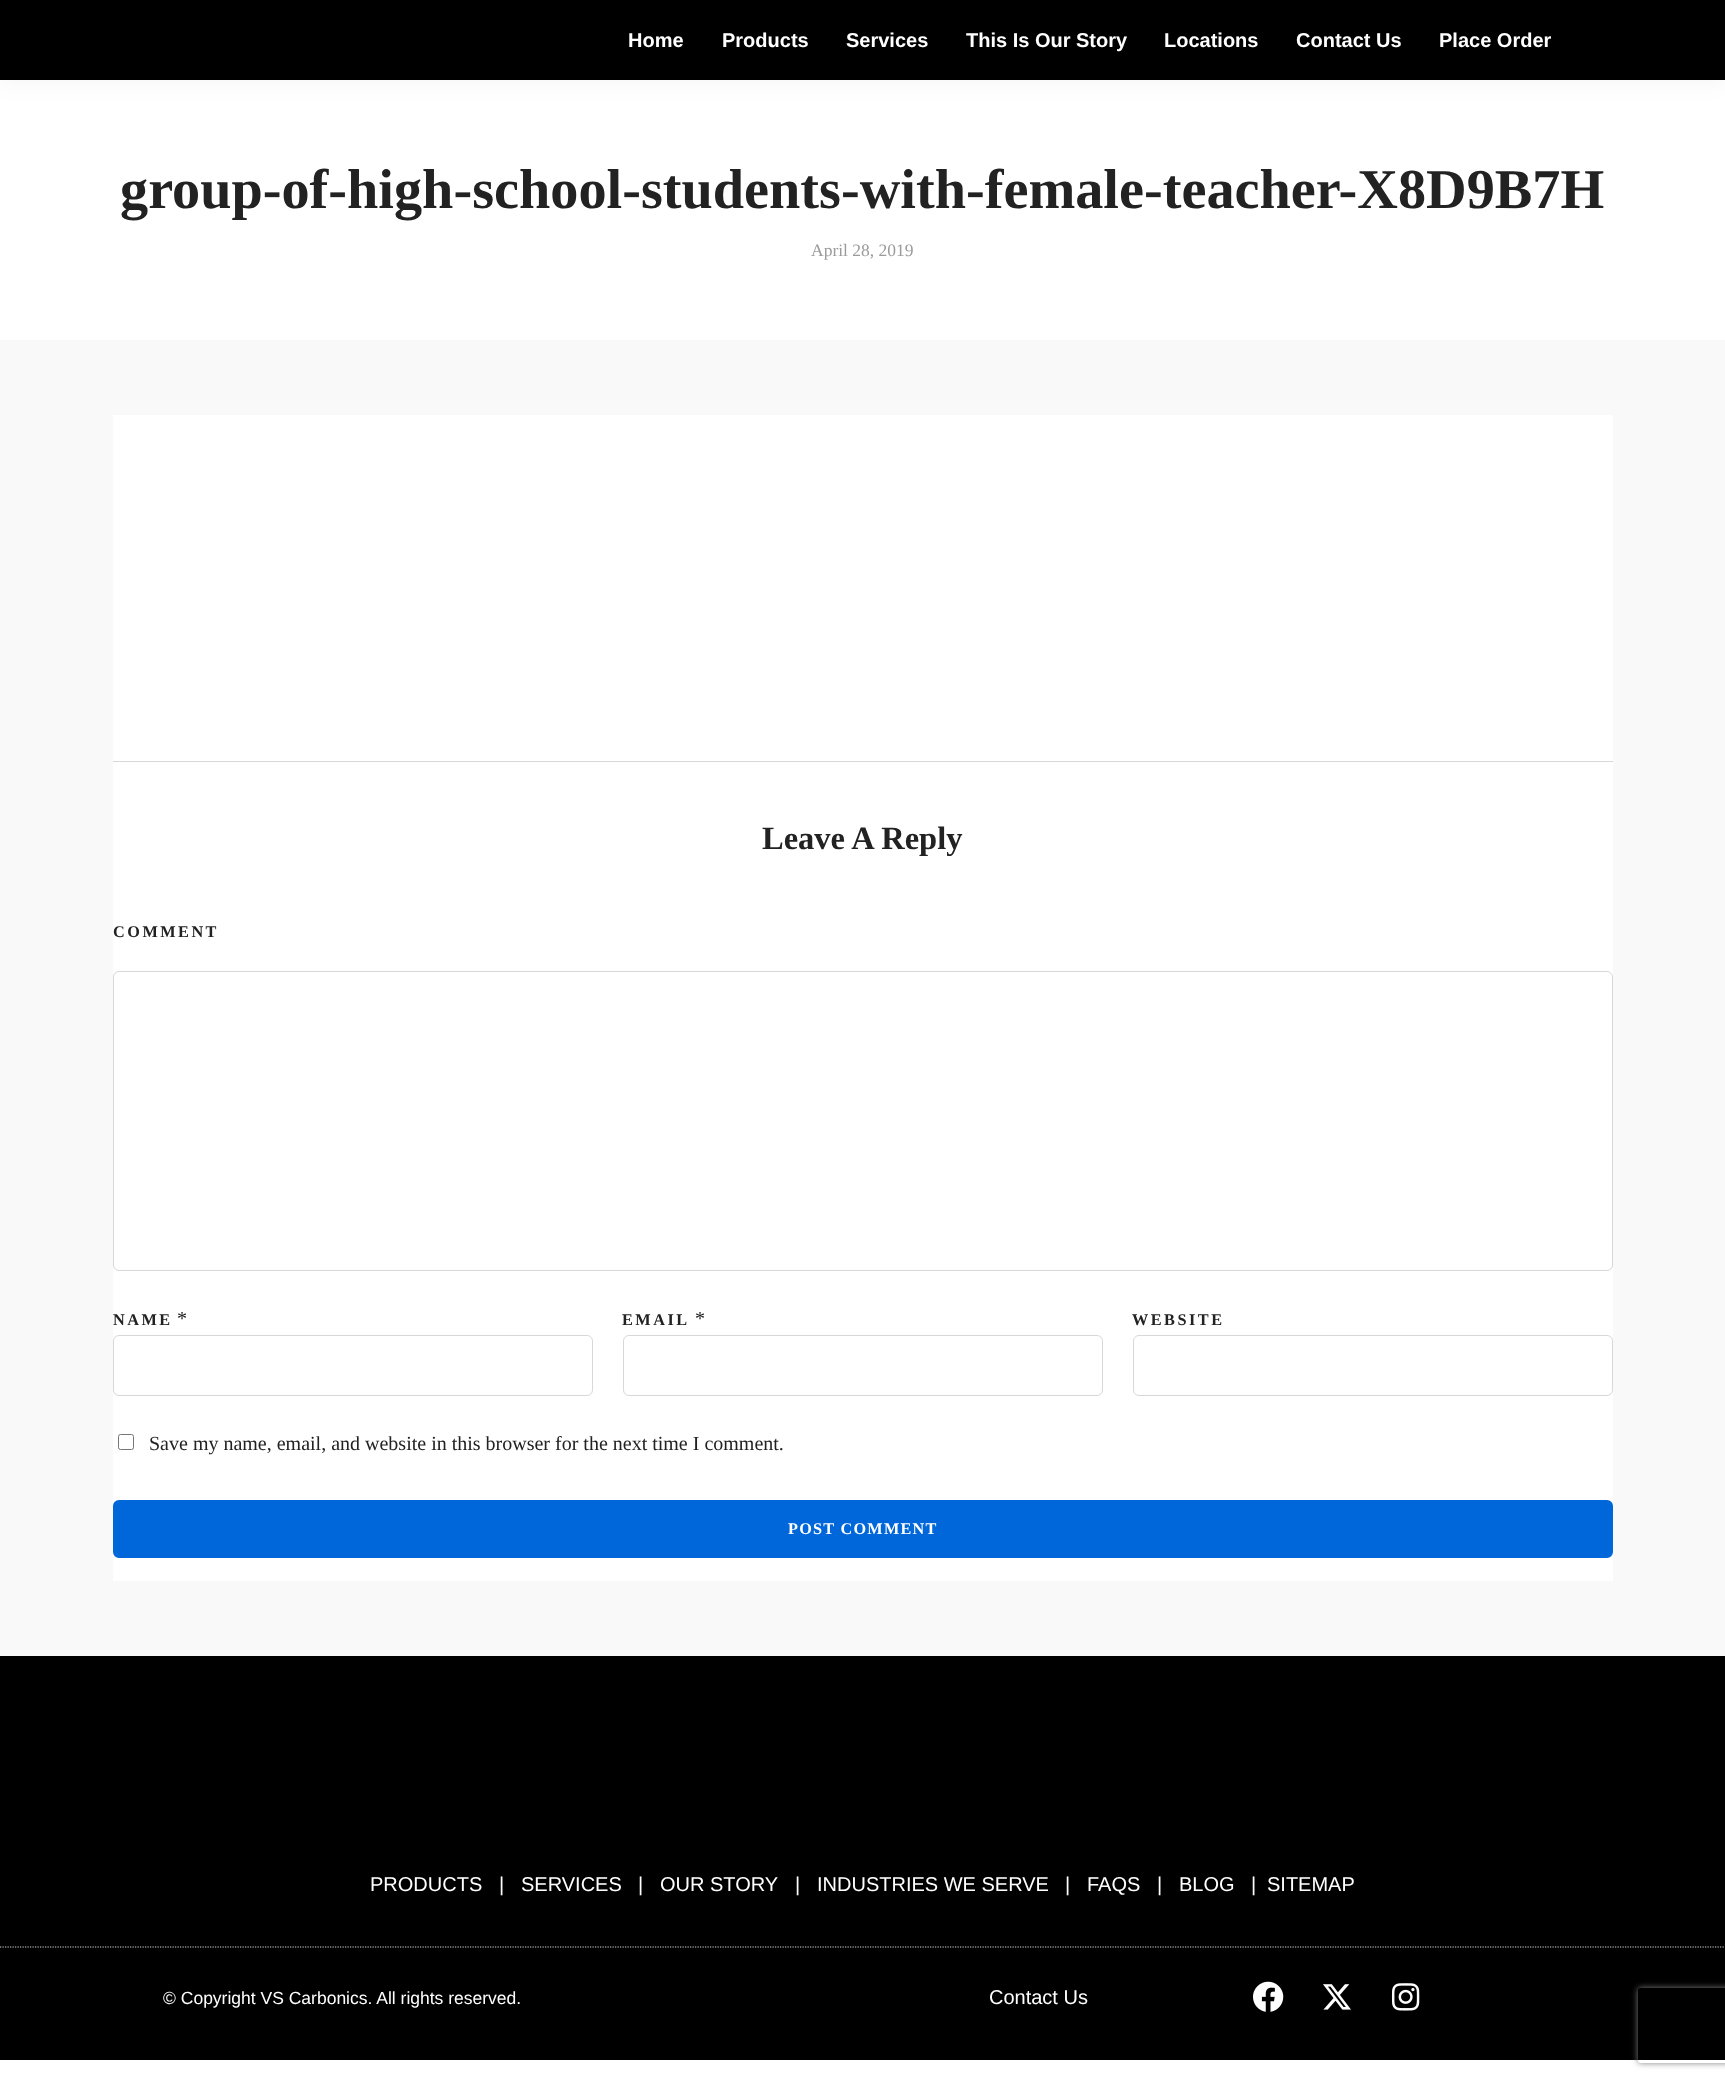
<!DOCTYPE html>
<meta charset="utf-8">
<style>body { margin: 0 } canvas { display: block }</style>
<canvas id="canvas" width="1725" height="2079"></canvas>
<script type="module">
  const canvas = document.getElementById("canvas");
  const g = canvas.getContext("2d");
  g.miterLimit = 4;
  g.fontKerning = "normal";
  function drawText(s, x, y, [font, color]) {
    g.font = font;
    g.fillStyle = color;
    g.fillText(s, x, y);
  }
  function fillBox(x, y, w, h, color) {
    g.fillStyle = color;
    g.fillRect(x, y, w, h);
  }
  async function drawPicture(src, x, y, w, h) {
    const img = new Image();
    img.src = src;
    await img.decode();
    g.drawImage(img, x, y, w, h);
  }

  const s1 = ["bold 20px Liberation Sans", "#FFFFFF"];
  const s2 = ["bold 56.25px Liberation Serif", "#222222"];
  const s3 = ["17.5px Liberation Serif", "#9B9B9B"];
  const s4 = ["bold 32.5px Liberation Serif", "#222222"];
  const s5 = ["bold 16.25px Liberation Serif", "#222222"];
  const s6 = ["20px Liberation Serif", "#222222"];
  const s7 = ["bold 16.25px Liberation Serif", "#FFFFFF"];
  const s8 = ["20px Liberation Sans", "#FFFFFF"];
  const s9 = ["17.5px Liberation Sans", "#FFFFFF"];

  fillBox(0, 0, 1725, 2079, "#FFFFFF");
  fillBox(0, 340, 1725, 1316, "#F9F9F9");
  g.fillStyle = "rgba(0, 0, 0, 0.05)";
  g.filter = "blur(12.5px)";
  g.beginPath();
  g.rect(0, 0, 1725, 80);
  g.fill();
  g.filter = "none";
  fillBox(0, 0, 1725, 80, "#000000");
  drawText("Home", 628, 47, s1);
  drawText("Products", 722, 47, s1);
  drawText("Services", 846, 47, s1);
  drawText("This Is Our Story", 966, 47, s1);
  drawText("Locations", 1164, 47, s1);
  drawText("Contact Us", 1296, 47, s1);
  drawText("Place Order", 1439, 47, s1);
  drawText("group-of-high-school-students-with-female-teacher-X8D9B7H", 120, 208, s2);
  drawText("April 28, 2019", 811, 256, s3);
  fillBox(113, 415, 1500, 1166, "#FFFFFF");
  fillBox(113, 761, 1500, 1, "#D8D8D8");
  drawText("Leave A Reply", 762, 849, s4);
  g.letterSpacing = "2.5px";
  drawText("COMMENT", 113, 937, s5);
  g.beginPath();
  g.roundRect(113.5, 971.5, 1499, 299, 5.5);
  g.strokeStyle = "#D8D8D8";
  g.stroke();
  drawText("NAME", 113, 1325, s5);
  g.letterSpacing = "0px";
  drawText("*", 177, 1325, s6);
  g.beginPath();
  g.roundRect(113.5, 1335.5, 479, 60, 5.5);
  g.stroke();
  g.letterSpacing = "2.5px";
  drawText("EMAIL", 622, 1325, s5);
  g.letterSpacing = "0px";
  drawText("*", 695, 1325, s6);
  g.beginPath();
  g.roundRect(623.5, 1335.5, 479, 60, 5.5);
  g.stroke();
  g.letterSpacing = "2.5px";
  drawText("WEBSITE", 1132, 1325, s5);
  g.beginPath();
  g.roundRect(1133.5, 1335.5, 479, 60, 5.5);
  g.stroke();
  g.beginPath();
  g.roundRect(118.5, 1434.5, 15, 15, 2);
  g.strokeStyle = "#767676";
  g.stroke();
  g.letterSpacing = "0px";
  drawText("Save my name, email, and website in this browser for the next time I comment.", 149, 1450, s6);
  g.fillStyle = "#0067DA";
  g.beginPath();
  g.roundRect(114.5, 1501.5, 1497, 55, 4.5);
  g.fill();
  g.strokeStyle = "#0067DA";
  g.lineWidth = 3;
  g.stroke();
  g.letterSpacing = "1.25px";
  drawText("POST COMMENT", 788, 1534, s7);
  fillBox(0, 1656, 1725, 404, "#000000");
  g.letterSpacing = "0px";
  drawText("PRODUCTS", 370, 1891, s8);
  drawText("|", 499, 1891, s8);
  drawText("SERVICES", 521, 1891, s8);
  drawText("|", 638, 1891, s8);
  drawText("OUR STORY", 660, 1891, s8);
  drawText("|", 795, 1891, s8);
  drawText("INDUSTRIES WE SERVE", 817, 1891, s8);
  drawText("|", 1065, 1891, s8);
  drawText("FAQS", 1087, 1891, s8);
  drawText("|", 1157, 1891, s8);
  drawText("BLOG", 1179, 1891, s8);
  drawText("|", 1251, 1891, s8);
  drawText("SITEMAP", 1267, 1891, s8);
  g.beginPath();
  g.moveTo(0, 1947);
  g.lineTo(1725, 1947);
  g.strokeStyle = "#D8D8D8";
  g.lineWidth = 1.2;
  g.setLineDash([1.25, 1.25]);
  g.stroke();
  drawText("© Copyright VS Carbonics. All rights reserved.", 163, 2004, s9);
  drawText("Contact Us", 989, 2004, s8);
  await drawPicture("pic1.png", 1253, 1981, 31, 31);
  await drawPicture("pic2.png", 1323, 1984, 28, 26);
  await drawPicture("pic3.png", 1391, 1983, 29, 28);
  g.save();
  g.beginPath();
  g.moveTo(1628, 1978);
  g.lineTo(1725, 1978);
  g.lineTo(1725, 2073);
  g.lineTo(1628, 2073);
  g.closePath();
  g.moveTo(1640.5, 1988);
  g.lineTo(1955.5, 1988);
  g.bezierCurveTo(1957, 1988, 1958, 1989, 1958, 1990.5);
  g.lineTo(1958, 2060.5);
  g.bezierCurveTo(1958, 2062, 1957, 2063, 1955.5, 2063);
  g.lineTo(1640.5, 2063);
  g.bezierCurveTo(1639, 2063, 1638, 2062, 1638, 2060.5);
  g.lineTo(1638, 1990.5);
  g.bezierCurveTo(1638, 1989, 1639, 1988, 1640.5, 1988);
  g.closePath();
  g.clip("evenodd");
  g.fillStyle = "#808080";
  g.filter = "blur(3px)";
  g.beginPath();
  g.roundRect(1638, 1988, 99, 75, 2.5);
  g.fill();
  g.filter = "none";
  g.restore();
</script>
